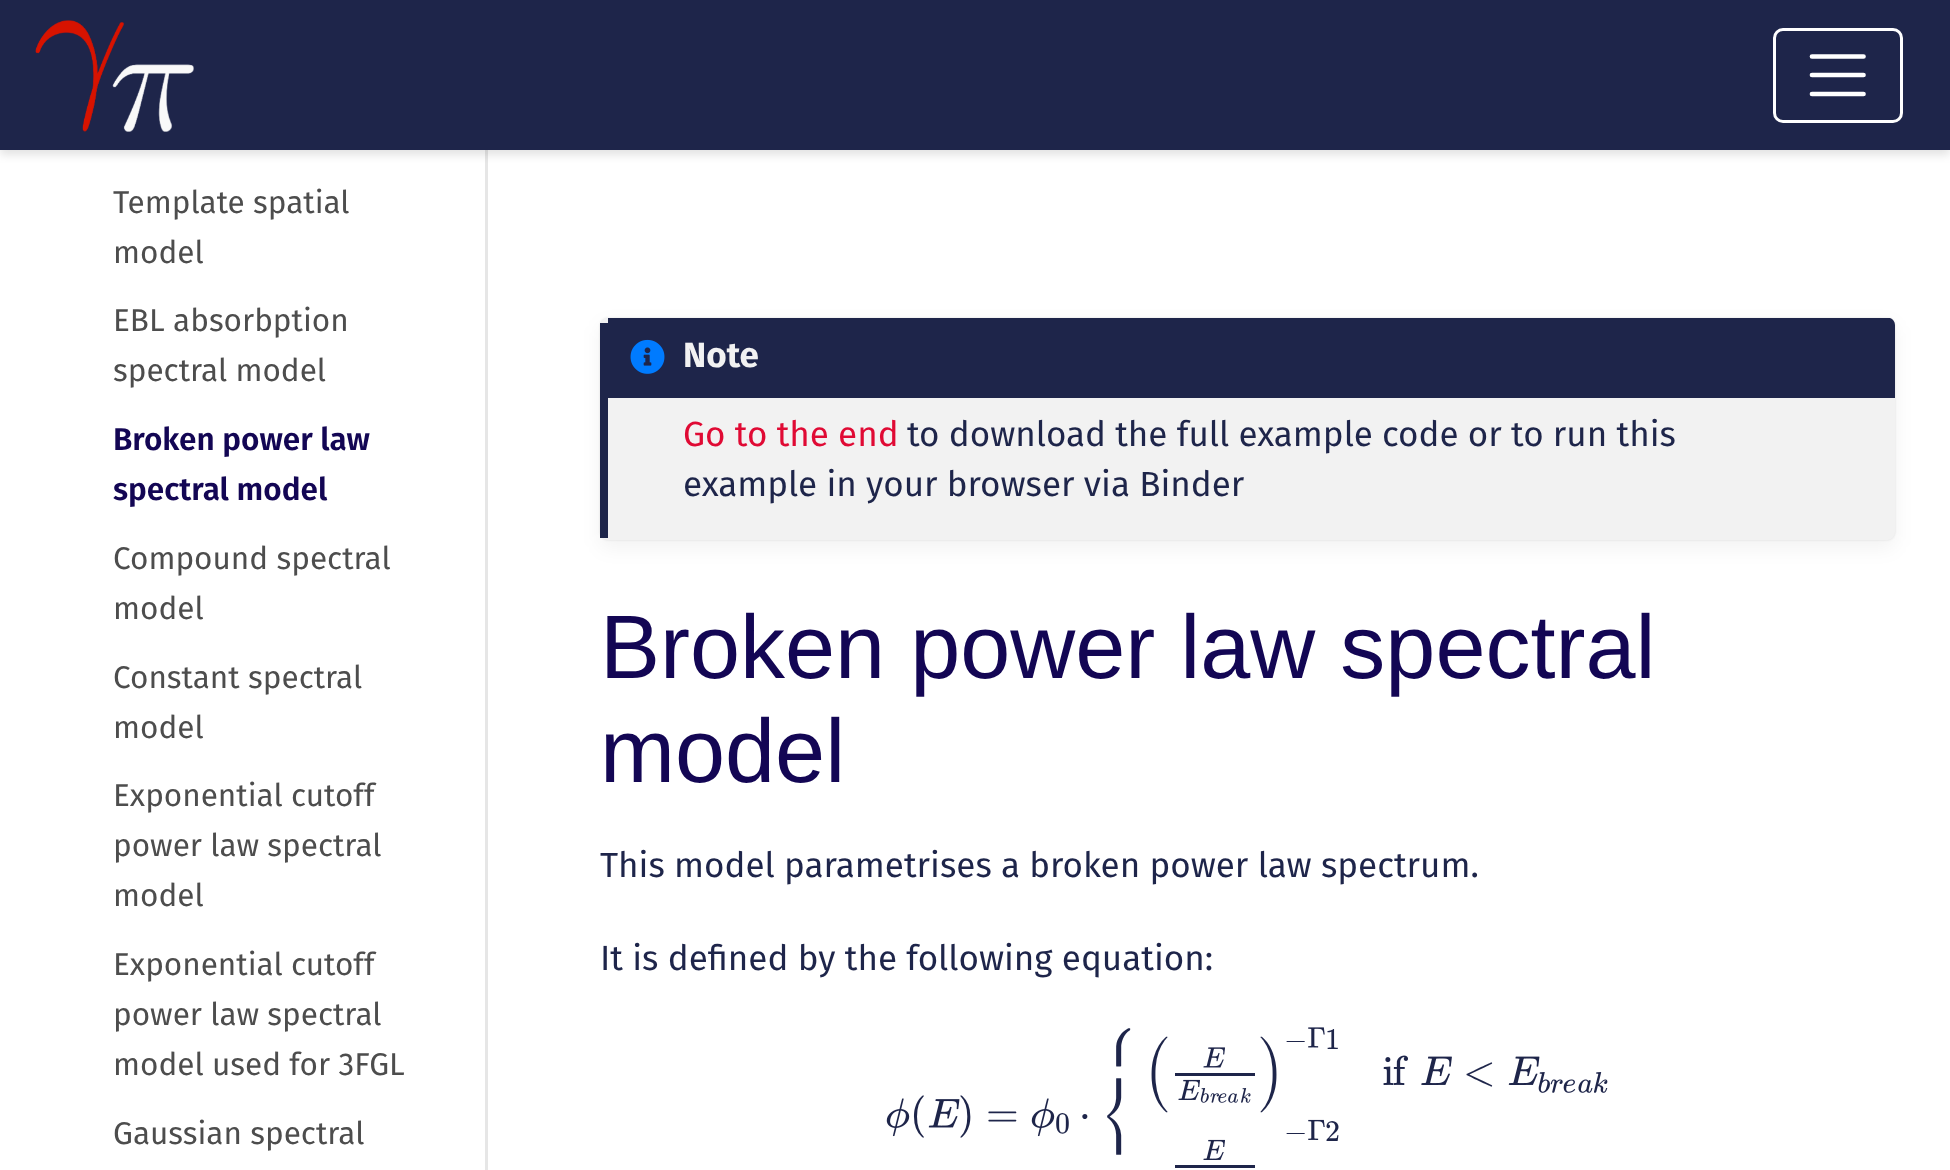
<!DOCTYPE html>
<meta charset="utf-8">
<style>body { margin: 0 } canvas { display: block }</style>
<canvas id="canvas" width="1950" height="1170"></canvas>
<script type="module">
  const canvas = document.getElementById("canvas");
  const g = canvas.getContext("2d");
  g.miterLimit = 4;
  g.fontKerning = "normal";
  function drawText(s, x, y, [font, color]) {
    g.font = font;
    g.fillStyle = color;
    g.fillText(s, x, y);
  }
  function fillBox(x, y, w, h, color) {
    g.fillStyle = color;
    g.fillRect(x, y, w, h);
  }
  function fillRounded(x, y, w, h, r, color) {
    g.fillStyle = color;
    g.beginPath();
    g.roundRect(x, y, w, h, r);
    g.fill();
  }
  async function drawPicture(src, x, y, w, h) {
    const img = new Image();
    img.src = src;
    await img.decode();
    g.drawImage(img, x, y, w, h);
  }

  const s1 = ["31.5px Fira Sans", "#4D4D4D"];
  const s2 = ["600 31.5px Fira Sans", "#130654"];
  const s3 = ["bold 35px Fira Sans", "#F2F2F2"];
  const s4 = ["35px Fira Sans", "#E00A34"];
  const s5 = ["35px Fira Sans", "#1E254A"];
  const s6 = ["90px Liberation Sans", "#130654"];
  const s7 = ["42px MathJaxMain", "#1E254A"];
  const s8 = ["30px MathJaxMain", "#1E254A"];
  const s9 = ["42px 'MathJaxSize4'", "#1E254A"];
  const s10 = ["42px 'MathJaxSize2'", "#1E254A"];

  fillBox(0, 0, 1950, 1170, "#FFFFFF");
  fillBox(485, 150, 3, 1020, "#E6E6E6");
  g.fillStyle = "rgba(0, 0, 0, 0.11)";
  g.filter = "blur(4.5px)";
  g.beginPath();
  g.rect(0, 5, 1950, 150);
  g.fill();
  g.filter = "none";
  fillBox(0, 0, 1950, 150, "#1E254A");
  await drawPicture("pic1.png", 35, 20, 159, 112);
  g.beginPath();
  g.roundRect(1774.5, 29.5, 127, 92, 8.5);
  g.strokeStyle = "#FFFFFF";
  g.lineWidth = 3;
  g.stroke();
  g.beginPath();
  g.moveTo(1812, 56.5);
  g.lineTo(1863.5, 56.5);
  g.moveTo(1812, 75);
  g.lineTo(1863.5, 75);
  g.moveTo(1812, 94);
  g.lineTo(1863.5, 94);
  g.lineWidth = 4.7;
  g.lineCap = "round";
  g.stroke();
  drawText("Template spatial", 113, 213, s1);
  drawText("model", 113, 263, s1);
  drawText("EBL absorbption", 113, 331, s1);
  drawText("spectral model", 113, 381, s1);
  drawText("Broken power law", 113, 450, s2);
  drawText("spectral model", 113, 500, s2);
  drawText("Compound spectral", 113, 569, s1);
  drawText("model", 113, 619, s1);
  drawText("Constant spectral", 113, 688, s1);
  drawText("model", 113, 738, s1);
  drawText("Exponential cutoff", 113, 806, s1);
  drawText("power law spectral", 113, 856, s1);
  drawText("model", 113, 906, s1);
  drawText("Exponential cutoff", 113, 975, s1);
  drawText("power law spectral", 113, 1025, s1);
  drawText("model used for 3FGL", 113, 1075, s1);
  drawText("Gaussian spectral", 113, 1144, s1);
  g.fillStyle = "rgba(0, 0, 0, 0.1)";
  g.filter = "blur(1px)";
  g.beginPath();
  g.roundRect(600, 318, 1295, 222, 8);
  g.fill();
  g.filter = "none";
  g.fillStyle = "rgba(0, 0, 0, 0.05)";
  g.filter = "blur(9.5px)";
  g.beginPath();
  g.roundRect(600, 325, 1295, 223, 8);
  g.fill();
  g.filter = "none";
  fillRounded(600, 318, 1295, 222, 8, "#F2F2F2");
  fillBox(600, 323, 8, 215, "#1E254A");
  g.beginPath();
  g.moveTo(608, 318);
  g.lineTo(608, 398);
  g.lineTo(1895, 398);
  g.lineTo(1895, 325);
  g.bezierCurveTo(1895, 322, 1893, 319, 1890, 318);
  g.closePath();
  g.fill();
  await drawPicture("pic2.png", 630, 339, 35, 35);
  drawText("Note", 683, 367, s3);
  drawText("Go to the end", 683, 446, s4);
  drawText("to download the full example code or to run this", 907, 446, s5);
  drawText("example in your browser via Binder", 683, 496, s5);
  drawText("Broken power law spectral", 600, 678, s6);
  drawText("model", 600, 782, s6);
  drawText("This model parametrises a broken power law spectrum.", 600, 877, s5);
  drawText("It is defined by the following equation:", 600, 970, s5);
  await drawPicture("pic3.png", 886, 1098, 24, 39);
  drawText("(", 910, 1127, s7);
  await drawPicture("pic4.png", 928, 1099, 32, 29);
  drawText(")", 958, 1127, s7);
  drawText("=", 986, 1127, s7);
  await drawPicture("pic3.png", 1031, 1098, 24, 39);
  drawText("0", 1055, 1133, s8);
  drawText("⋅", 1079, 1127, s7);
  drawText("⎧", 1100, 1066, s9);
  drawText("⎨", 1100, 1127, s9);
  drawText("(", 1144, 1085, s10);
  await drawPicture("pic5.png", 1203, 1047, 22, 21);
  fillBox(1175, 1073, 80, 3, "#1E254A");
  await drawPicture("pic6.png", 1178, 1079, 22, 21);
  await drawPicture("pic7.png", 1200, 1088, 9, 15);
  await drawPicture("pic8.png", 1210, 1093, 9, 10);
  await drawPicture("pic9.png", 1218, 1093, 9, 10);
  await drawPicture("pic10.png", 1228, 1093, 10, 10);
  await drawPicture("pic11.png", 1241, 1088, 10, 15);
  drawText(")", 1259, 1085, s10);
  drawText("−", 1284, 1049, s8);
  await drawPicture("pic12.png", 1308, 1027, 17, 21);
  drawText("1", 1325, 1049, s8);
  await drawPicture("pic13.png", 1383, 1057, 11, 28);
  await drawPicture("pic14.png", 1393, 1055, 15, 30);
  await drawPicture("pic15.png", 1421, 1056, 31, 29);
  drawText("<", 1463, 1085, s7);
  await drawPicture("pic16.png", 1508, 1056, 32, 29);
  await drawPicture("pic17.png", 1538, 1072, 12, 21);
  await drawPicture("pic18.png", 1550, 1079, 13, 14);
  await drawPicture("pic19.png", 1563, 1079, 13, 14);
  await drawPicture("pic20.png", 1578, 1079, 15, 14);
  await drawPicture("pic21.png", 1594, 1072, 14, 21);
  drawText("−", 1284, 1141, s8);
  await drawPicture("pic22.png", 1308, 1119, 17, 21);
  drawText("2", 1325, 1141, s8);
  await drawPicture("pic6.png", 1203, 1139, 22, 21);
  fillBox(1175, 1165, 80, 3, "#1E254A");
</script>
